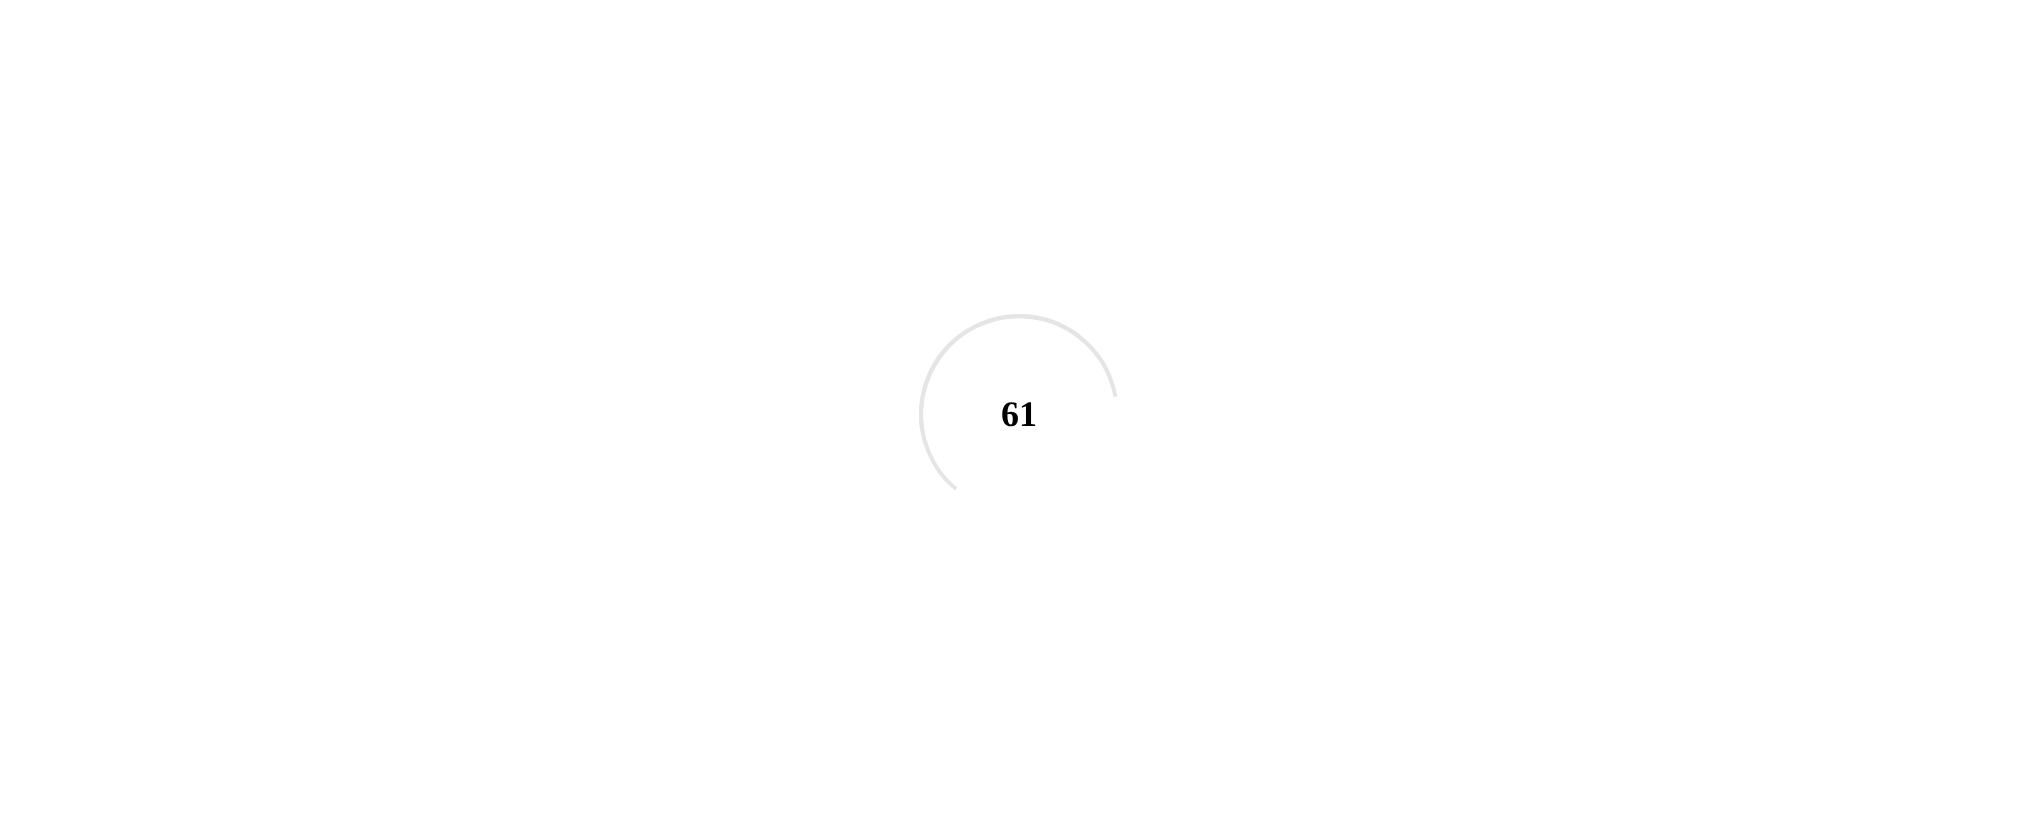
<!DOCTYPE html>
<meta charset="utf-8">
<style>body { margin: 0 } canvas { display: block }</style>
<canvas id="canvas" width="2037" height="827"></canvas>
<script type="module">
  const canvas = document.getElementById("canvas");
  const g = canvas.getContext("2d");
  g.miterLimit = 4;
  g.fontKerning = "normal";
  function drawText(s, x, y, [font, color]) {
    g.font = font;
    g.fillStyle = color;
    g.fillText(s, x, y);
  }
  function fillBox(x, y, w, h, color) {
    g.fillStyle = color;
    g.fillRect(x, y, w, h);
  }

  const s1 = ["bold 36px Liberation Serif", "#000000"];

  fillBox(0, 0, 2037, 827, "#FFFFFF");
  drawText("61", 1001, 426, s1);
  g.beginPath();
  g.moveTo(956, 489);
  g.bezierCurveTo(943.5, 479, 934, 465.5, 928, 450.5);
  g.bezierCurveTo(900.5, 382.5, 956.5, 308.5, 1030, 316.5);
  g.bezierCurveTo(1049, 318.5, 1067, 326.5, 1082, 339);
  g.strokeStyle = "#E5E5E5";
  g.lineWidth = 4;
  g.stroke();
  g.beginPath();
  g.moveTo(922.5, 431);
  g.bezierCurveTo(919.5, 415, 921, 399, 926, 383.5);
  g.bezierCurveTo(948.5, 313.5, 1039, 293, 1090, 346.5);
  g.bezierCurveTo(1103, 360, 1112, 378, 1115.5, 397);
  g.stroke();
</script>
